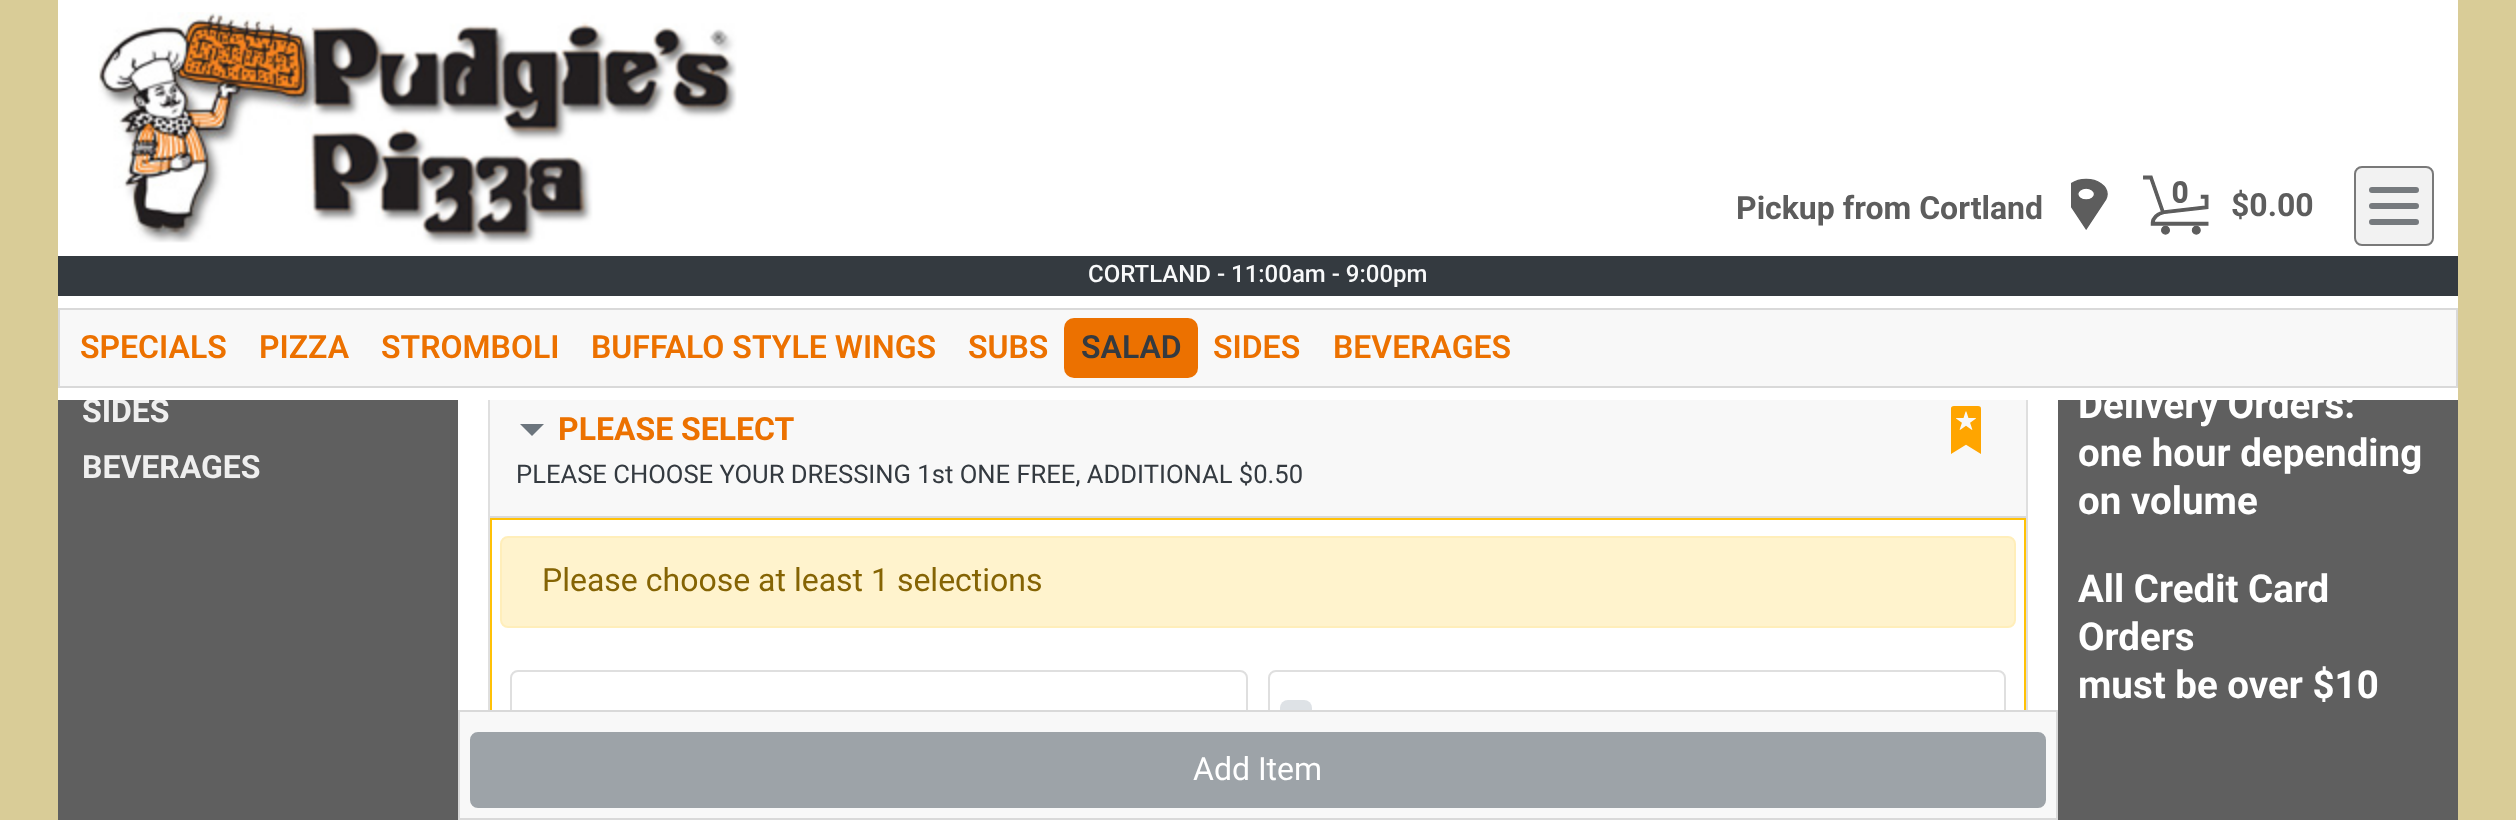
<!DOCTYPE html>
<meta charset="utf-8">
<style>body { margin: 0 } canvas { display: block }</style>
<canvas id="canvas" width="2516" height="820"></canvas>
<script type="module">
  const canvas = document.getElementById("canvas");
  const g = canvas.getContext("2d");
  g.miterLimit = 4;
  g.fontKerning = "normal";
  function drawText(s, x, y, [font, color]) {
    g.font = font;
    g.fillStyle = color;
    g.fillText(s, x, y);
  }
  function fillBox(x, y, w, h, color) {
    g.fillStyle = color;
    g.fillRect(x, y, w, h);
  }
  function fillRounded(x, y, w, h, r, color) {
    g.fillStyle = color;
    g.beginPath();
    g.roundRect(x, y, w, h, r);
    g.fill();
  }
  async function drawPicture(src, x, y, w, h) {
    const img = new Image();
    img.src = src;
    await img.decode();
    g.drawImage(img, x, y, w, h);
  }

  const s1 = ["bold 32px Roboto", "#5D5D5D"];
  const s2 = ["500 24px Roboto", "#F8F9FA"];
  const s3 = ["600 32px Roboto", "#EC7100"];
  const s4 = ["600 32px Roboto", "#343A40"];
  const s5 = ["bold 32px Roboto", "#EFEFEF"];
  const s6 = ["bold 32px Roboto", "#EC7100"];
  const s7 = ["25.6px Roboto", "#343A40"];
  const s8 = ["32px Roboto", "#856404"];
  const s9 = ["32px Roboto", "#FFFFFF"];
  const s10 = ["bold 38.5px Roboto", "#FFFFFF"];

  fillBox(0, 0, 2516, 820, "#D9CC97");
  fillBox(58, 0, 2400, 256, "#FFFFFF");
  await drawPicture("pic1.png", 98, 12, 639, 233);
  drawText("Pickup from Cortland", 1736, 219, s1);
  await drawPicture("pic2.png", 2071, 178, 37, 52);
  await drawPicture("pic3.png", 2143, 175, 66, 60);
  drawText("$0.00", 2231, 216, s1);
  fillRounded(2354, 166, 80, 80, 8, "#F2F2F2");
  g.beginPath();
  g.roundRect(2355, 167, 78, 78, 7);
  g.strokeStyle = "rgba(0, 0, 0, 0.5)";
  g.lineWidth = 2;
  g.stroke();
  await drawPicture("pic4.png", 2369, 187, 50, 38);
  fillBox(58, 256, 2400, 40, "#343A40");
  drawText("CORTLAND - 11:00am - 9:00pm", 1088, 282, s2);
  fillBox(58, 296, 2400, 12, "#FFFFFF");
  fillBox(458, 400, 1600, 310, "#FFFFFF");
  g.strokeStyle = "#DFDFDF";
  g.strokeRect(489, 383, 1538, 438);
  g.fillStyle = "#F8F8F8";
  g.beginPath();
  g.rect(59, 309, 2398, 78);
  g.fill();
  g.strokeStyle = "#D9D9D9";
  g.stroke();
  drawText("SPECIALS", 80, 358, s3);
  drawText("PIZZA", 259, 358, s3);
  drawText("STROMBOLI", 381, 358, s3);
  drawText("BUFFALO STYLE WINGS", 591, 358, s3);
  drawText("SUBS", 968, 358, s3);
  fillRounded(1064, 318, 134, 60, 10, "#EC7100");
  drawText("SALAD", 1081, 358, s4);
  drawText("SIDES", 1213, 358, s3);
  drawText("BEVERAGES", 1333, 358, s3);
  fillBox(58, 400, 400, 420, "#5F5F5F");
  drawText("SIDES", 82, 422, s5);
  fillBox(58, 388, 2400, 12, "#FFFFFF");
  drawText("BEVERAGES", 82, 478, s5);
  fillBox(490, 400, 1536, 116, "#F8F8F8");
  fillBox(490, 516, 1536, 2, "#D9D9D9");
  await drawPicture("pic5.png", 520, 424, 24, 12);
  drawText("PLEASE SELECT", 558, 440, s6);
  await drawPicture("pic6.png", 1951, 406, 30, 48);
  drawText("PLEASE CHOOSE YOUR DRESSING 1st ONE FREE, ADDITIONAL $0.50", 516, 483, s7);
  g.strokeStyle = "#FFC107";
  g.strokeRect(491, 519, 1534, 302);
  g.fillStyle = "#FFF3CD";
  g.beginPath();
  g.roundRect(501, 537, 1514, 90, 7);
  g.fill();
  g.strokeStyle = "#FFEEBA";
  g.stroke();
  drawText("Please choose at least 1 selections", 542, 591, s8);
  g.beginPath();
  g.roundRect(511, 671, 736, 90, 7);
  g.strokeStyle = "#DFDFDF";
  g.stroke();
  g.beginPath();
  g.roundRect(1269, 671, 736, 90, 7);
  g.stroke();
  fillRounded(1280, 700, 32, 32, 8, "#DEE2E6");
  g.fillStyle = "#F8F8F8";
  g.beginPath();
  g.rect(459, 711, 1598, 108);
  g.fill();
  g.strokeStyle = "#D9D9D9";
  g.stroke();
  g.fillStyle = "#9DA3A8";
  g.beginPath();
  g.roundRect(471, 733, 1574, 74, 7);
  g.fill();
  g.strokeStyle = "#9DA3A8";
  g.stroke();
  drawText("Add Item", 1193, 780, s9);
  fillBox(2058, 400, 400, 420, "#5F5F5F");
  drawText("Delivery Orders:", 2078, 418, s10);
  drawText("one hour depending", 2078, 466, s10);
  drawText("on volume", 2078, 514, s10);
  drawText("All Credit Card", 2078, 602, s10);
  drawText("Orders", 2078, 650, s10);
  drawText("must be over $10", 2078, 698, s10);
</script>
